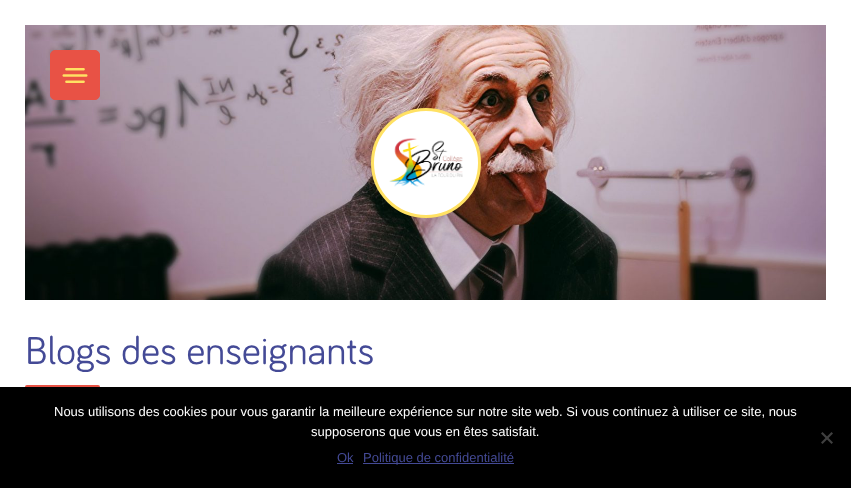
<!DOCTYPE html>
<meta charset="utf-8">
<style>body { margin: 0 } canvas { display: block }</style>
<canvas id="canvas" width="851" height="488"></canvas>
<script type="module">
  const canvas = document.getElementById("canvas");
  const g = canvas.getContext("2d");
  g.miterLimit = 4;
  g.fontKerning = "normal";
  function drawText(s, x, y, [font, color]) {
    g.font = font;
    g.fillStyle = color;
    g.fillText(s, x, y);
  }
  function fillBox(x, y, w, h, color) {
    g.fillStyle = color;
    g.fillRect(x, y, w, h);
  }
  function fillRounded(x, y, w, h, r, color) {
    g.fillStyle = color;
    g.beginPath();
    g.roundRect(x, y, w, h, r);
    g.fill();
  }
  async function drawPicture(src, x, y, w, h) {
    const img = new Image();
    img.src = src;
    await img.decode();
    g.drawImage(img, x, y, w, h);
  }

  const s1 = ["40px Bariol", "#444A96"];
  const s2 = ["13px Liberation Sans", "#FFFFFF"];
  const s3 = ["13px Liberation Sans", "#444A96"];

  fillBox(0, 0, 851, 488, "#FFFFFF");
  await drawPicture("pic3.png", 25, 25, 801, 275);
  g.fillStyle = "#E85245";
  g.beginPath();
  g.roundRect(50.5, 50.5, 49, 49, 4.5);
  g.fill();
  g.strokeStyle = "#E85245";
  g.stroke();
  await drawPicture("pic1.png", 62, 68, 26, 15);
  g.fillStyle = "#FFFFFF";
  g.beginPath();
  g.arc(426, 163, 53.5, 0, Math.PI * 2);
  g.fill();
  g.strokeStyle = "#FFE163";
  g.lineWidth = 3;
  g.stroke();
  await drawPicture("pic2.png", 389, 138, 74, 49);
  drawText("Blogs des enseignants", 25, 364, s1);
  fillRounded(25, 385, 75, 4, 2, "#E85245");
  fillBox(0, 387, 851, 101, "#000000");
  drawText("Nous utilisons des cookies pour vous garantir la meilleure expérience sur notre site web. Si vous continuez à utiliser ce site, nous", 54, 416, s2);
  drawText("supposerons que vous en êtes satisfait.", 311, 436, s2);
  g.fillStyle = "#404040";
  g.beginPath();
  g.moveTo(831.5, 432);
  g.lineTo(833, 433.5);
  g.lineTo(822.5, 444);
  g.lineTo(821, 442.5);
  g.closePath();
  g.fill();
  g.beginPath();
  g.moveTo(821, 433.5);
  g.lineTo(822.5, 432);
  g.lineTo(833, 442.5);
  g.lineTo(831.5, 444);
  g.closePath();
  g.fill();
  drawText("Ok", 337, 462, s3);
  fillBox(337, 463, 16, 1, "#444A96");
  fillBox(363, 463, 151, 1, "#444A96");
  drawText("Politique de confidentialité", 363, 462, s3);
</script>
